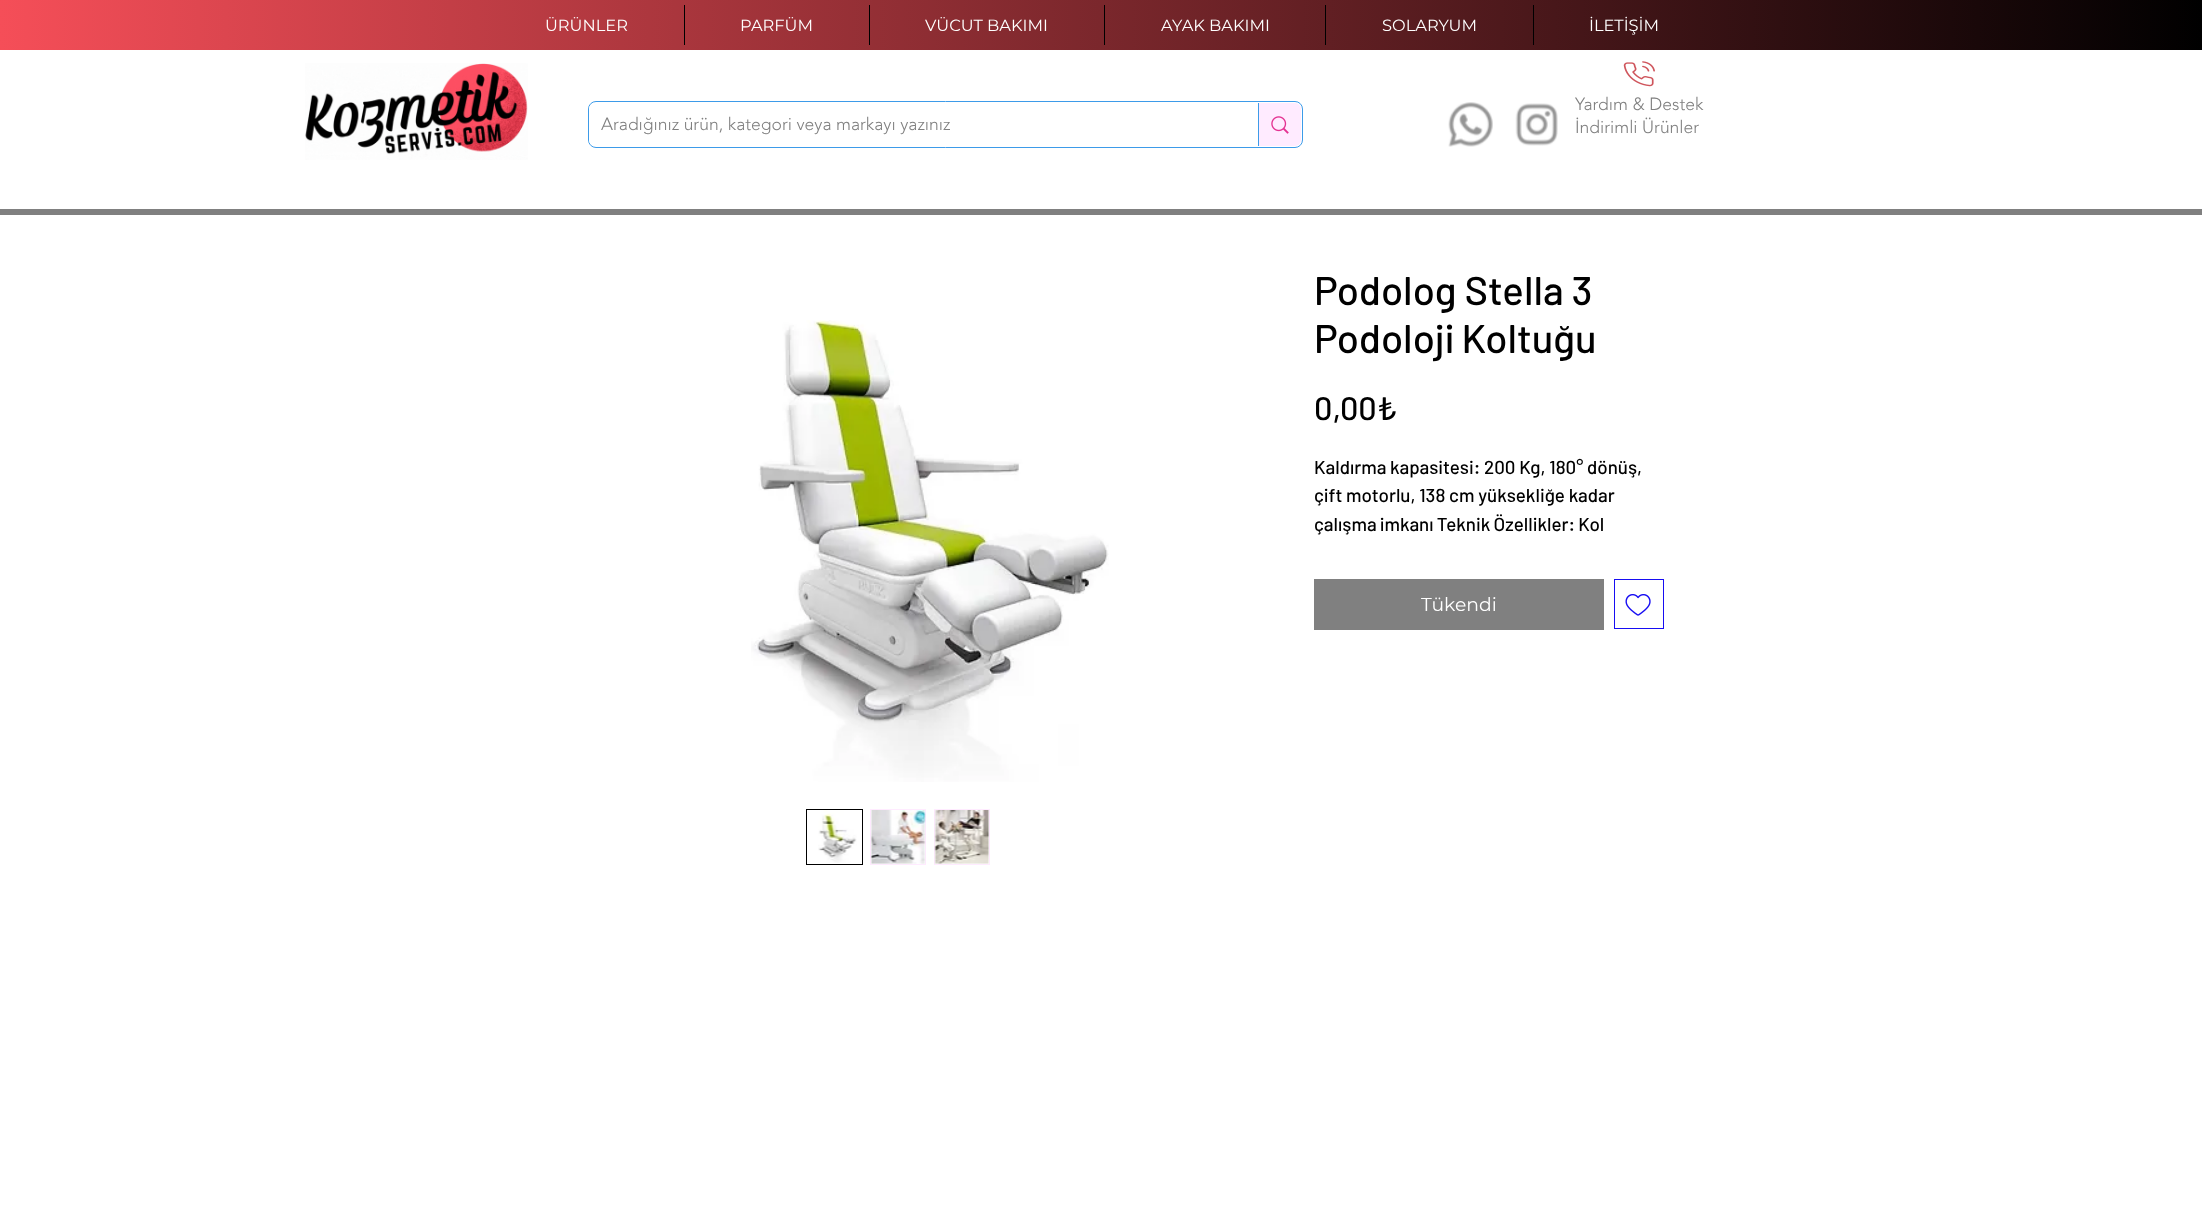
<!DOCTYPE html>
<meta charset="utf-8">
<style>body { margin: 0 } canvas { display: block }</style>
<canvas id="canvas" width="2202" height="1230"></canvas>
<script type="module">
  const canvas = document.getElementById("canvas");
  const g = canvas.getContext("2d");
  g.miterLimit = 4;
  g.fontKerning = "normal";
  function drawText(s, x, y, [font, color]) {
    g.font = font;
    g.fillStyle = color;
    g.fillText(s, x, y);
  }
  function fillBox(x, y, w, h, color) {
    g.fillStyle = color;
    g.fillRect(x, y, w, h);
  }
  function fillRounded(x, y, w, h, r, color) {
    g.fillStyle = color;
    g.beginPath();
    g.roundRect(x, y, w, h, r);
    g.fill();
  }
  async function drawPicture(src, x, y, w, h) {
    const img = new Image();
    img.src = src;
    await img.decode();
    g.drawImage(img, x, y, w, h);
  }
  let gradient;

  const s1 = ["16.25px Montserrat", "#FFFFFF"];
  const s2 = ["300 17.5px 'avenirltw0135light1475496'", "#808080"];
  const s3 = ["500 40px Barlow", "#000000"];
  const s4 = ["500 32.5px Barlow", "#000000"];
  const s5 = ["500 18.75px Barlow", "#000000"];
  const s6 = ["18.75px Montserrat", "#FFFFFF"];

  fillBox(0, 0, 2202, 1230, "#FFFFFF");
  gradient = g.createLinearGradient(0, 25, 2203, 25);
  gradient.addColorStop(0, "#F54E58");
  gradient.addColorStop(1, "#000000");
  g.fillStyle = gradient;
  g.fillRect(0, 0, 2202, 50);
  drawText("ÜRÜNLER", 545, 31, s1);
  fillBox(684, 5, 1, 40, "#000000");
  drawText("PARFÜM", 740, 31, s1);
  fillBox(869, 5, 1, 40, "#000000");
  drawText("VÜCUT BAKIMI", 925, 31, s1);
  fillBox(1104, 5, 1, 40, "#000000");
  drawText("AYAK BAKIMI", 1161, 31, s1);
  fillBox(1325, 5, 1, 40, "#000000");
  drawText("SOLARYUM", 1382, 31, s1);
  fillBox(1533, 5, 1, 40, "#000000");
  drawText("İLETİŞİM", 1589, 31, s1);
  await drawPicture("pic1.png", 305, 63, 223, 97);
  await drawPicture("pic2.png", 1623, 61, 32, 26);
  g.beginPath();
  g.roundRect(588.5, 101.5, 714, 46, 7.5);
  g.strokeStyle = "#3D9BE9";
  g.stroke();
  fillRounded(589, 103, 712, 43, 6, "#FFFFFF");
  drawText("Aradığınız ürün, kategori veya markayı yazınız", 601, 130, s2);
  g.fillStyle = "#FFEBFF";
  g.beginPath();
  g.roundRect(1258, 103, 43, 43, [0, 6, 6, 0]);
  g.fill();
  fillBox(1258, 103, 1, 43, "#3D9BE9");
  await drawPicture("pic3.png", 1271, 116, 18, 18);
  await drawPicture("pic4.png", 1448, 102, 45, 45);
  await drawPicture("pic5.png", 1515, 103, 43, 43);
  drawText("Yardım & Destek", 1575, 110, s2);
  drawText("İndirimli Ürünler", 1575, 133, s2);
  fillBox(0, 209, 2202, 6, "#808080");
  await drawPicture("pic6.png", 751, 320, 358, 462);
  g.strokeStyle = "#000000";
  g.strokeRect(806.5, 809.5, 56, 55);
  await drawPicture("pic7.png", 818, 810, 39, 53);
  g.strokeStyle = "#FFEBFF";
  g.strokeRect(870.5, 809.5, 55, 55);
  await drawPicture("pic8.png", 870, 810, 56, 54);
  g.strokeRect(934.5, 809.5, 55, 55);
  await drawPicture("pic9.png", 934, 810, 56, 54);
  drawText("Podolog Stella 3", 1314, 305, s3);
  g.wordSpacing = "-1px";
  drawText("Podoloji Koltuğu", 1314, 353, s3);
  g.wordSpacing = "0px";
  drawText("0,00₺", 1314, 420, s4);
  drawText("Kaldırma kapasitesi: 200 Kg, 180° dönüş,", 1314, 474, s5);
  drawText("çift motorlu, 138 cm yüksekliğe kadar", 1314, 502, s5);
  g.wordSpacing = "-0.5px";
  drawText("çalışma imkanı Teknik Özellikler: Kol", 1314, 531, s5);
  fillBox(1314, 579, 290, 51, "#808080");
  g.wordSpacing = "0px";
  drawText("Tükendi", 1421, 611, s6);
  g.strokeStyle = "#170DF2";
  g.strokeRect(1614.5, 579.5, 49, 49);
  await drawPicture("pic10.png", 1625, 594, 26, 22);
</script>
